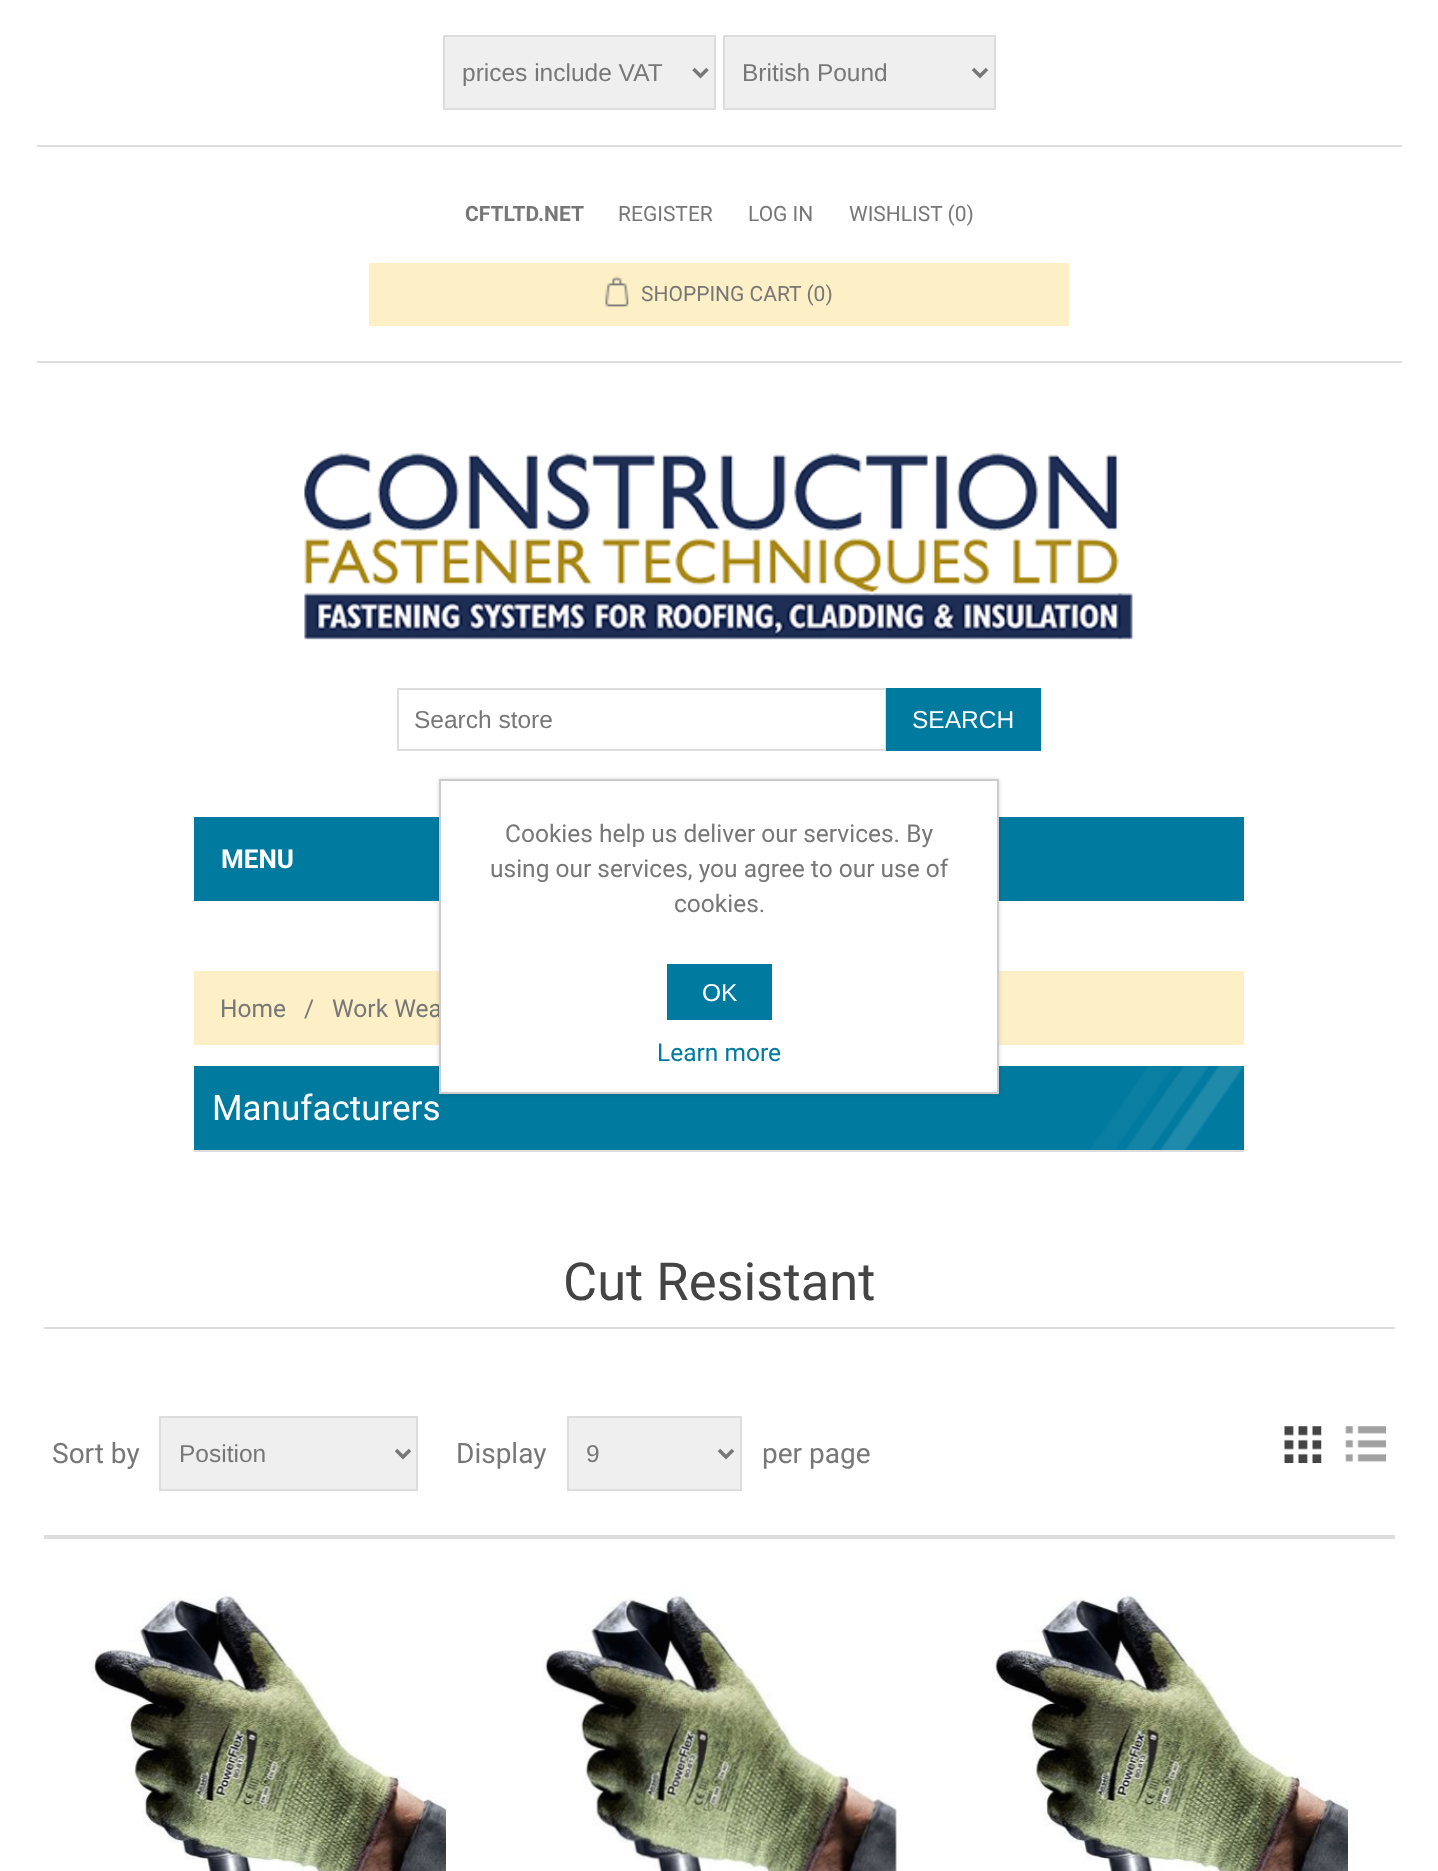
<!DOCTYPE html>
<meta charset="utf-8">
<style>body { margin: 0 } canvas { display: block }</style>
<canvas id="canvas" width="1438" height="1871"></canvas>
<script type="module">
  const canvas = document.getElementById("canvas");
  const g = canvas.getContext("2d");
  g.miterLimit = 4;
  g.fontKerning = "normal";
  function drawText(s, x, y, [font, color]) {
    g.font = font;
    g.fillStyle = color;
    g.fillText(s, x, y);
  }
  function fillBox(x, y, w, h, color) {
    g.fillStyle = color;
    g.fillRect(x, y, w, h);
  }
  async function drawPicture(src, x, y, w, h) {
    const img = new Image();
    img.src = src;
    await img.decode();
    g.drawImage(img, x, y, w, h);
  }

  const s1 = ["24.5px Liberation Sans", "#777777"];
  const s2 = ["bold 21px Roboto", "#777777"];
  const s3 = ["21px Roboto", "#777777"];
  const s4 = ["24.5px Liberation Sans", "#FFFFFF"];
  const s5 = ["bold 26px Roboto", "#FFFFFF"];
  const s6 = ["24.5px Roboto", "#777777"];
  const s7 = ["35px Roboto", "#FFFFFF"];
  const s8 = ["52.5px Roboto", "#444444"];
  const s9 = ["28px Roboto", "#777777"];
  const s10 = ["24.5px Roboto", "#007A9F"];

  fillBox(0, 0, 1438, 1871, "#FFFFFF");
  fillBox(37, 361, 1365, 2, "#DDDDDD");
  fillBox(37, 145, 1365, 2, "#DDDDDD");
  g.fillStyle = "#EFEFEF";
  g.beginPath();
  g.rect(444, 36, 271, 73);
  g.fill();
  g.strokeStyle = "#DDDDDD";
  g.lineWidth = 2;
  g.stroke();
  g.beginPath();
  g.moveTo(693.5, 69);
  g.lineTo(700.5, 76);
  g.lineTo(707.5, 69);
  g.strokeStyle = "#777777";
  g.lineWidth = 3.5;
  g.stroke();
  drawText("prices include VAT", 462, 81, s1);
  g.fillStyle = "#EFEFEF";
  g.beginPath();
  g.rect(724, 36, 271, 73);
  g.fill();
  g.strokeStyle = "#DDDDDD";
  g.lineWidth = 2;
  g.stroke();
  g.beginPath();
  g.moveTo(973, 69);
  g.lineTo(980, 76);
  g.lineTo(987, 69);
  g.strokeStyle = "#777777";
  g.lineWidth = 3.5;
  g.stroke();
  drawText("British Pound", 742, 81, s1);
  drawText("CFTLTD.NET", 465, 221, s2);
  drawText("REGISTER", 618, 221, s3);
  drawText("LOG IN", 748, 221, s3);
  drawText("WISHLIST (0)", 849, 221, s3);
  fillBox(369, 263, 700, 63, "#FDF0C6");
  await drawPicture("pic1.png", 605, 276, 24, 31);
  drawText("SHOPPING CART (0)", 641, 301, s3);
  await drawPicture("pic2.png", 304, 452, 829, 188);
  g.strokeStyle = "#DDDDDD";
  g.lineWidth = 2;
  g.strokeRect(398, 689, 488, 61);
  drawText("Search store", 414, 728, s1);
  fillBox(886, 688, 155, 63, "#007A9F");
  drawText("SEARCH", 912, 728, s4);
  fillBox(194, 817, 1050, 84, "#007A9F");
  drawText("MENU", 221, 868, s5);
  fillBox(194, 971, 1050, 74, "#FDF0C6");
  drawText("Home", 220, 1017, s6);
  drawText("/", 304, 1017, s6);
  drawText("Work Wea", 332, 1017, s6);
  fillBox(194, 1066, 1050, 84, "#007A9F");
  await drawPicture("pic3.png", 1091, 1066, 153, 84);
  fillBox(194, 1150, 1050, 2, "#DDDDDD");
  drawText("Manufacturers", 212, 1120, s7);
  fillBox(44, 1327, 1351, 2, "#DDDDDD");
  drawText("Cut Resistant", 563, 1300, s8);
  fillBox(44, 1535, 1351, 4, "#DDDDDD");
  drawText("Sort by", 52, 1463, s9);
  g.fillStyle = "#EFEFEF";
  g.beginPath();
  g.rect(160, 1417, 257, 73);
  g.fill();
  g.stroke();
  g.beginPath();
  g.moveTo(396, 1450);
  g.lineTo(403, 1457);
  g.lineTo(410, 1450);
  g.strokeStyle = "#777777";
  g.lineWidth = 3.5;
  g.stroke();
  drawText("Position", 179, 1462, s1);
  drawText("Display", 456, 1463, s9);
  g.fillStyle = "#EFEFEF";
  g.beginPath();
  g.rect(568, 1417, 173, 73);
  g.fill();
  g.strokeStyle = "#DDDDDD";
  g.lineWidth = 2;
  g.stroke();
  g.beginPath();
  g.moveTo(719, 1450);
  g.lineTo(726, 1457);
  g.lineTo(733, 1450);
  g.strokeStyle = "#777777";
  g.lineWidth = 3.5;
  g.stroke();
  drawText("9", 586, 1462, s1);
  drawText("per page", 762, 1463, s9);
  await drawPicture("pic4.png", 1284, 1426, 38, 37);
  await drawPicture("pic5.png", 1345, 1426, 41, 36);
  await drawPicture("pic6.png", 91, 1591, 355, 280);
  await drawPicture("pic7.png", 542, 1591, 355, 280);
  await drawPicture("pic8.png", 992, 1591, 356, 280);
  g.fillStyle = "rgba(0, 0, 0, 0.15)";
  g.filter = "blur(2px)";
  g.beginPath();
  g.rect(439, 779, 560, 315);
  g.fill();
  g.filter = "none";
  g.fillStyle = "#FFFFFF";
  g.beginPath();
  g.rect(440, 780, 558, 313);
  g.fill();
  g.strokeStyle = "#CCCCCC";
  g.lineWidth = 2;
  g.stroke();
  drawText("Cookies help us deliver our services. By", 505, 842, s6);
  drawText("using our services, you agree to our use of", 490, 877, s6);
  drawText("cookies.", 674, 912, s6);
  fillBox(667, 964, 105, 56, "#007A9F");
  drawText("OK", 702, 1001, s4);
  drawText("Learn more", 657, 1061, s10);
</script>
